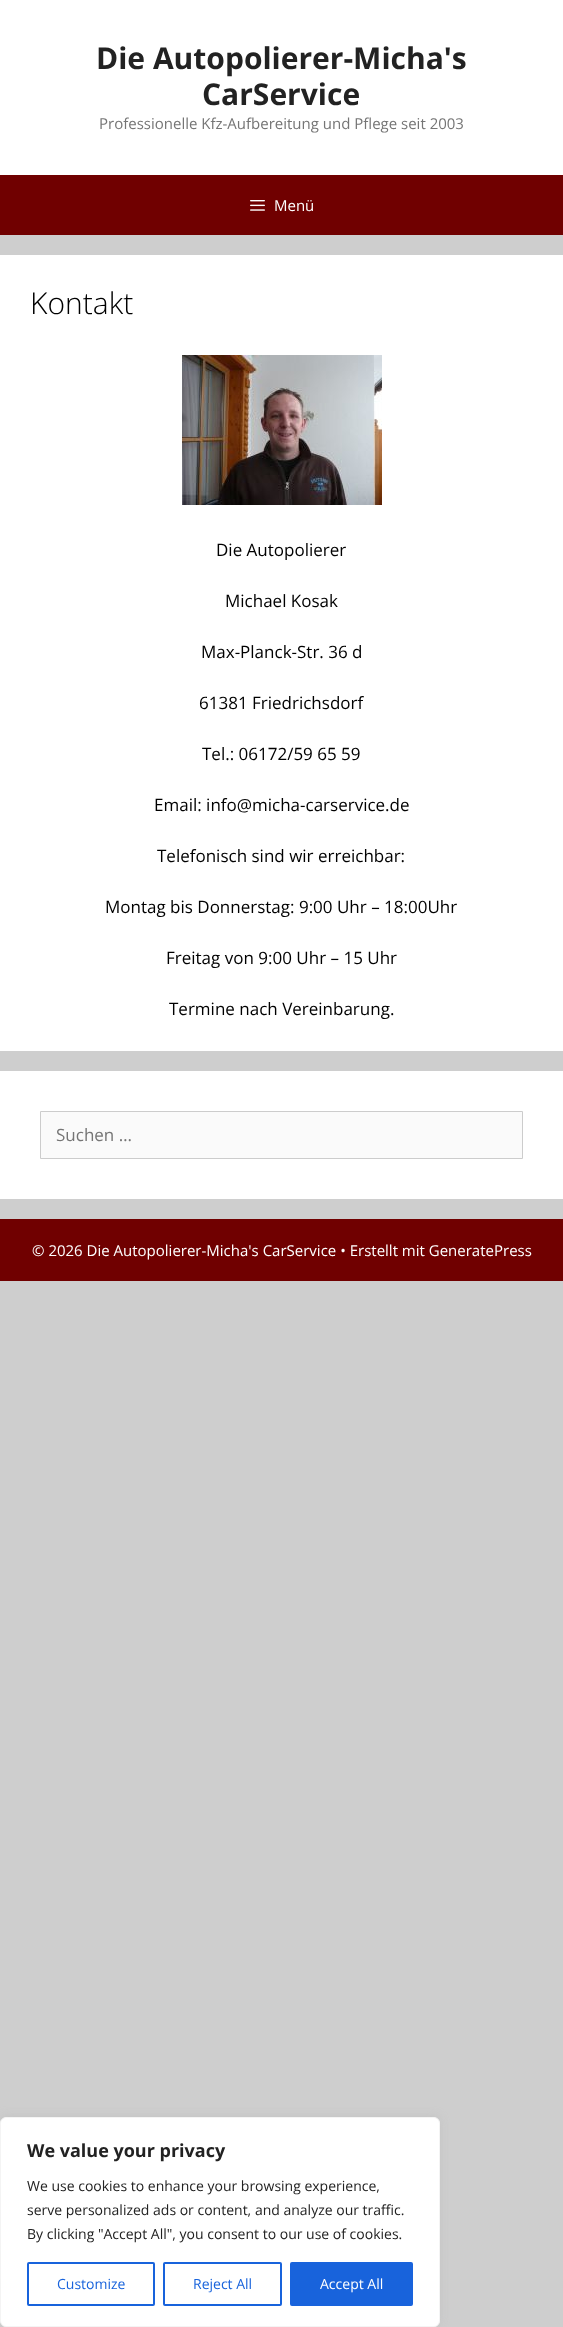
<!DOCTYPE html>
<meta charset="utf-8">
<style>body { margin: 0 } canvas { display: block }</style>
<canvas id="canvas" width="563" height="2327"></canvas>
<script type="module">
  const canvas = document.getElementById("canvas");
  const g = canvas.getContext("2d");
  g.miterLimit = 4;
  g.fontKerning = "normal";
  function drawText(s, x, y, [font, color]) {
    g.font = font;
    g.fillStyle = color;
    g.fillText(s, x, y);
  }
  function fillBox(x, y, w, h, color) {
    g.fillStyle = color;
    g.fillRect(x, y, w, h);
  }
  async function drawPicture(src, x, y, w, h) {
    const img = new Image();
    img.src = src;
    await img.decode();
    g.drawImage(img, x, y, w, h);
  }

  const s1 = ["bold 30px Open Sans", "#222222"];
  const s2 = ["15px Open Sans", "#757575"];
  const s3 = ["15px Open Sans", "#FFFFFF"];
  const s4 = ["300 30px Open Sans", "#000000"];
  const s5 = ["17px Open Sans", "#000000"];
  const s6 = ["17px Open Sans", "#757575"];
  const s7 = ["bold 18px Open Sans", "#222222"];
  const s8 = ["14px Open Sans", "#222222"];
  const s9 = ["14px Open Sans", "#1863DC"];
  const s10 = ["14px Open Sans", "#FFFFFF"];

  fillBox(0, 0, 563, 2327, "#CECECE");
  fillBox(0, 0, 563, 175, "#FFFFFF");
  drawText("Die Autopolierer-Micha's", 96, 69, s1);
  drawText("CarService", 202, 105, s1);
  drawText("Professionelle Kfz-Aufbereitung und Pflege seit 2003", 99, 129, s2);
  fillBox(0, 175, 563, 60, "#700000");
  await drawPicture("pic1.png", 250, 200, 15, 11);
  drawText("Menü", 274, 211, s3);
  fillBox(0, 255, 563, 796, "#FFFFFF");
  drawText("Kontakt", 30, 314, s4);
  await drawPicture("pic2.png", 182, 355, 200, 150);
  drawText("Die Autopolierer", 216, 556, s5);
  drawText("Michael Kosak", 225, 607, s5);
  drawText("Max-Planck-Str. 36 d", 201, 658, s5);
  drawText("61381 Friedrichsdorf", 199, 709, s5);
  drawText("Tel.: 06172/59 65 59", 202, 760, s5);
  drawText("Email: info@micha-carservice.de", 154, 811, s5);
  drawText("Telefonisch sind wir erreichbar:", 157, 862, s5);
  drawText("Montag bis Donnerstag: 9:00 Uhr – 18:00Uhr", 105, 913, s5);
  drawText("Freitag von 9:00 Uhr – 15 Uhr", 166, 964, s5);
  drawText("Termine nach Vereinbarung.", 169, 1015, s5);
  fillBox(0, 1071, 563, 128, "#FFFFFF");
  g.fillStyle = "#FAFAFA";
  g.beginPath();
  g.rect(40.5, 1111.5, 482, 47);
  g.fill();
  g.strokeStyle = "#CCCCCC";
  g.stroke();
  drawText("Suchen …", 56, 1141, s6);
  fillBox(0, 1219, 563, 62, "#700000");
  drawText("© 2026 Die Autopolierer-Micha's CarService • Erstellt mit GeneratePress", 32, 1256, s3);
  g.fillStyle = "rgba(172, 171, 171, 0.3)";
  g.filter = "blur(5px)";
  g.beginPath();
  g.roundRect(0, 2116, 440, 210, 6);
  g.fill();
  g.filter = "none";
  g.fillStyle = "#FFFFFF";
  g.beginPath();
  g.roundRect(0.5, 2117.5, 439, 209, 5.5);
  g.fill();
  g.strokeStyle = "#F4F4F4";
  g.stroke();
  drawText("We value your privacy", 27, 2157, s7);
  drawText("We use cookies to enhance your browsing experience,", 27, 2191, s8);
  drawText("serve personalized ads or content, and analyze our traffic.", 27, 2215, s8);
  drawText("By clicking \"Accept All\", you consent to our use of cookies.", 27, 2239, s8);
  g.beginPath();
  g.roundRect(28, 2263, 126, 42, 1);
  g.strokeStyle = "#1863DC";
  g.lineWidth = 2;
  g.stroke();
  drawText("Customize", 57, 2289, s9);
  g.beginPath();
  g.roundRect(164, 2263, 117, 42, 1);
  g.stroke();
  drawText("Reject All", 193, 2289, s9);
  g.beginPath();
  g.roundRect(291, 2263, 121, 42, 1);
  g.fill();
  g.stroke();
  drawText("Accept All", 320, 2289, s10);
</script>
